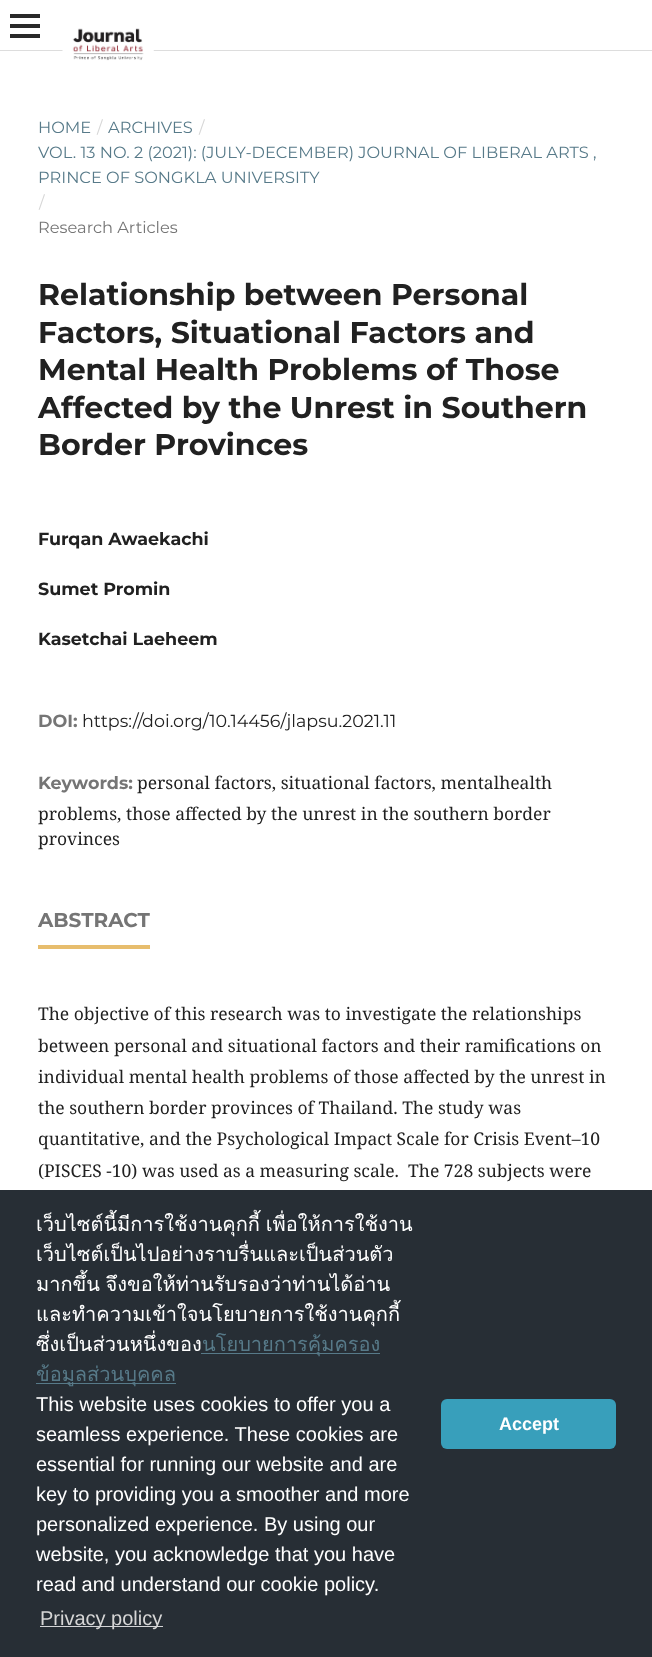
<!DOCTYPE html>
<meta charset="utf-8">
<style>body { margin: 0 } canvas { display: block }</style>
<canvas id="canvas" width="652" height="1657"></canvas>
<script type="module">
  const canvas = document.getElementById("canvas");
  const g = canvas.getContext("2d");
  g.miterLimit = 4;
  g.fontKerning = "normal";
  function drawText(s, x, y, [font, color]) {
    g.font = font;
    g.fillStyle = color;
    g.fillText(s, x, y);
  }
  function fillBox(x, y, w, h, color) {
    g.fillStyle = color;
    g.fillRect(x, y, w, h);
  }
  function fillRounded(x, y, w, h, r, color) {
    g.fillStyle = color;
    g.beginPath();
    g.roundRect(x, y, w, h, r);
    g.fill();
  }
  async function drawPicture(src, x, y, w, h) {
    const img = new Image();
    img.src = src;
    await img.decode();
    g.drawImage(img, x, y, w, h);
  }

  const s1 = ["16.25px Montserrat", "#577A89"];
  const s2 = ["16.25px Montserrat", "#D6D6D6"];
  const s3 = ["16.25px Montserrat", "#757575"];
  const s4 = ["bold 30px Montserrat", "#212121"];
  const s5 = ["bold 17.5px Montserrat", "#212121"];
  const s6 = ["bold 17.5px Montserrat", "#757575"];
  const s7 = ["17.5px Montserrat", "#212121"];
  const s8 = ["17.5px Noto Serif", "#212121"];
  const s9 = ["bold 20px Montserrat", "#757575"];
  const s10 = ["20px Loma", "#FFFFFF"];
  const s11 = ["20px Loma", "#577A89"];
  const s12 = ["20px Liberation Sans", "#FFFFFF"];
  const s13 = ["20px Liberation Sans", "#D6D6D6"];
  const s14 = ["bold 18px Liberation Sans", "#FFFFFF"];

  fillBox(0, 0, 652, 1657, "#FFFFFF");
  fillBox(0, 50, 652, 1, "#DDDDDD");
  fillBox(10, 34, 30, 4, "#292929");
  fillBox(10, 14, 30, 4, "#292929");
  fillBox(10, 24, 30, 4, "#292929");
  await drawPicture("pic1.png", 62, 28, 92, 33);
  drawText("HOME", 38, 133, s1);
  drawText("/", 97, 133, s2);
  drawText("ARCHIVES", 108, 133, s1);
  drawText("/", 199, 133, s2);
  drawText("VOL. 13 NO. 2 (2021): (JULY-DECEMBER) JOURNAL OF LIBERAL ARTS ,", 38, 158, s1);
  drawText("PRINCE OF SONGKLA UNIVERSITY", 38, 183, s1);
  drawText("/", 39, 208, s2);
  drawText("Research Articles", 38, 233, s3);
  drawText("Relationship between Personal", 38, 305, s4);
  drawText("Factors, Situational Factors and", 38, 343, s4);
  drawText("Mental Health Problems of Those", 38, 380, s4);
  drawText("Affected by the Unrest in Southern", 38, 418, s4);
  drawText("Border Provinces", 38, 455, s4);
  drawText("Furqan Awaekachi", 38, 545, s5);
  drawText("Sumet Promin", 38, 595, s5);
  drawText("Kasetchai Laeheem", 38, 645, s5);
  drawText("DOI:", 38, 727, s6);
  drawText("https://doi.org/10.14456/jlapsu.2021.11", 82, 727, s7);
  drawText("Keywords:", 38, 789, s6);
  drawText("personal factors, situational factors, mentalhealth", 137, 789, s8);
  drawText("problems, those affected by the unrest in the southern border", 38, 820, s8);
  drawText("provinces", 38, 845, s8);
  fillBox(38, 945, 112, 4, "#E7BD6D");
  drawText("ABSTRACT", 38, 927, s9);
  drawText("The objective of this research was to investigate the relationships", 38, 1020, s8);
  drawText("between personal and situational factors and their ramifications on", 38, 1052, s8);
  drawText("individual mental health problems of those affected by the unrest in", 38, 1083, s8);
  drawText("the southern border provinces of Thailand. The study was", 38, 1114, s8);
  drawText("quantitative, and the Psychological Impact Scale for Crisis Event–10", 38, 1145, s8);
  drawText("(PISCES -10) was used as a measuring scale.  The 728 subjects were", 38, 1177, s8);
  fillBox(0, 1190, 652, 467, "#272E35");
  g.wordSpacing = "-1px";
  drawText("เว็บไซต์นี้มีการใช้งานคุกกี้ เพื่อให้การใช้งาน", 36, 1231, s10);
  g.wordSpacing = "0px";
  drawText("เว็บไซต์เป็นไปอย่างราบรื่นและเป็นส่วนตัว", 36, 1261, s10);
  g.wordSpacing = "-1px";
  drawText("มากขึ้น จึงขอให้ท่านรับรองว่าท่านได้อ่าน", 36, 1291, s10);
  g.wordSpacing = "0px";
  drawText("และทำความเข้าใจนโยบายการใช้งานคุกกี้", 36, 1321, s10);
  drawText("ซึ่งเป็นส่วนหนึ่งของ", 36, 1351, s10);
  fillBox(201, 1353, 179, 1, "#577A89");
  drawText("นโยบายการคุ้มครอง", 202, 1351, s11);
  fillBox(36, 1383, 140, 1, "#577A89");
  drawText("ข้อมูลส่วนบุคคล", 36, 1381, s11);
  drawText("This website uses cookies to offer you a", 36, 1411, s12);
  drawText("seamless experience. These cookies are", 36, 1441, s12);
  drawText("essential for running our website and are", 36, 1471, s12);
  drawText("key to providing you a smoother and more", 36, 1501, s12);
  drawText("personalized experience. By using our", 36, 1531, s12);
  drawText("website, you acknowledge that you have", 36, 1561, s12);
  drawText("read and understand our cookie policy.", 36, 1591, s12);
  fillBox(40, 1626, 123, 1, "#D4D5D7");
  drawText("Privacy policy", 40, 1625, s13);
  fillRounded(441, 1399, 175, 50, 6, "#389FBB");
  drawText("Accept", 499, 1430, s14);
</script>
